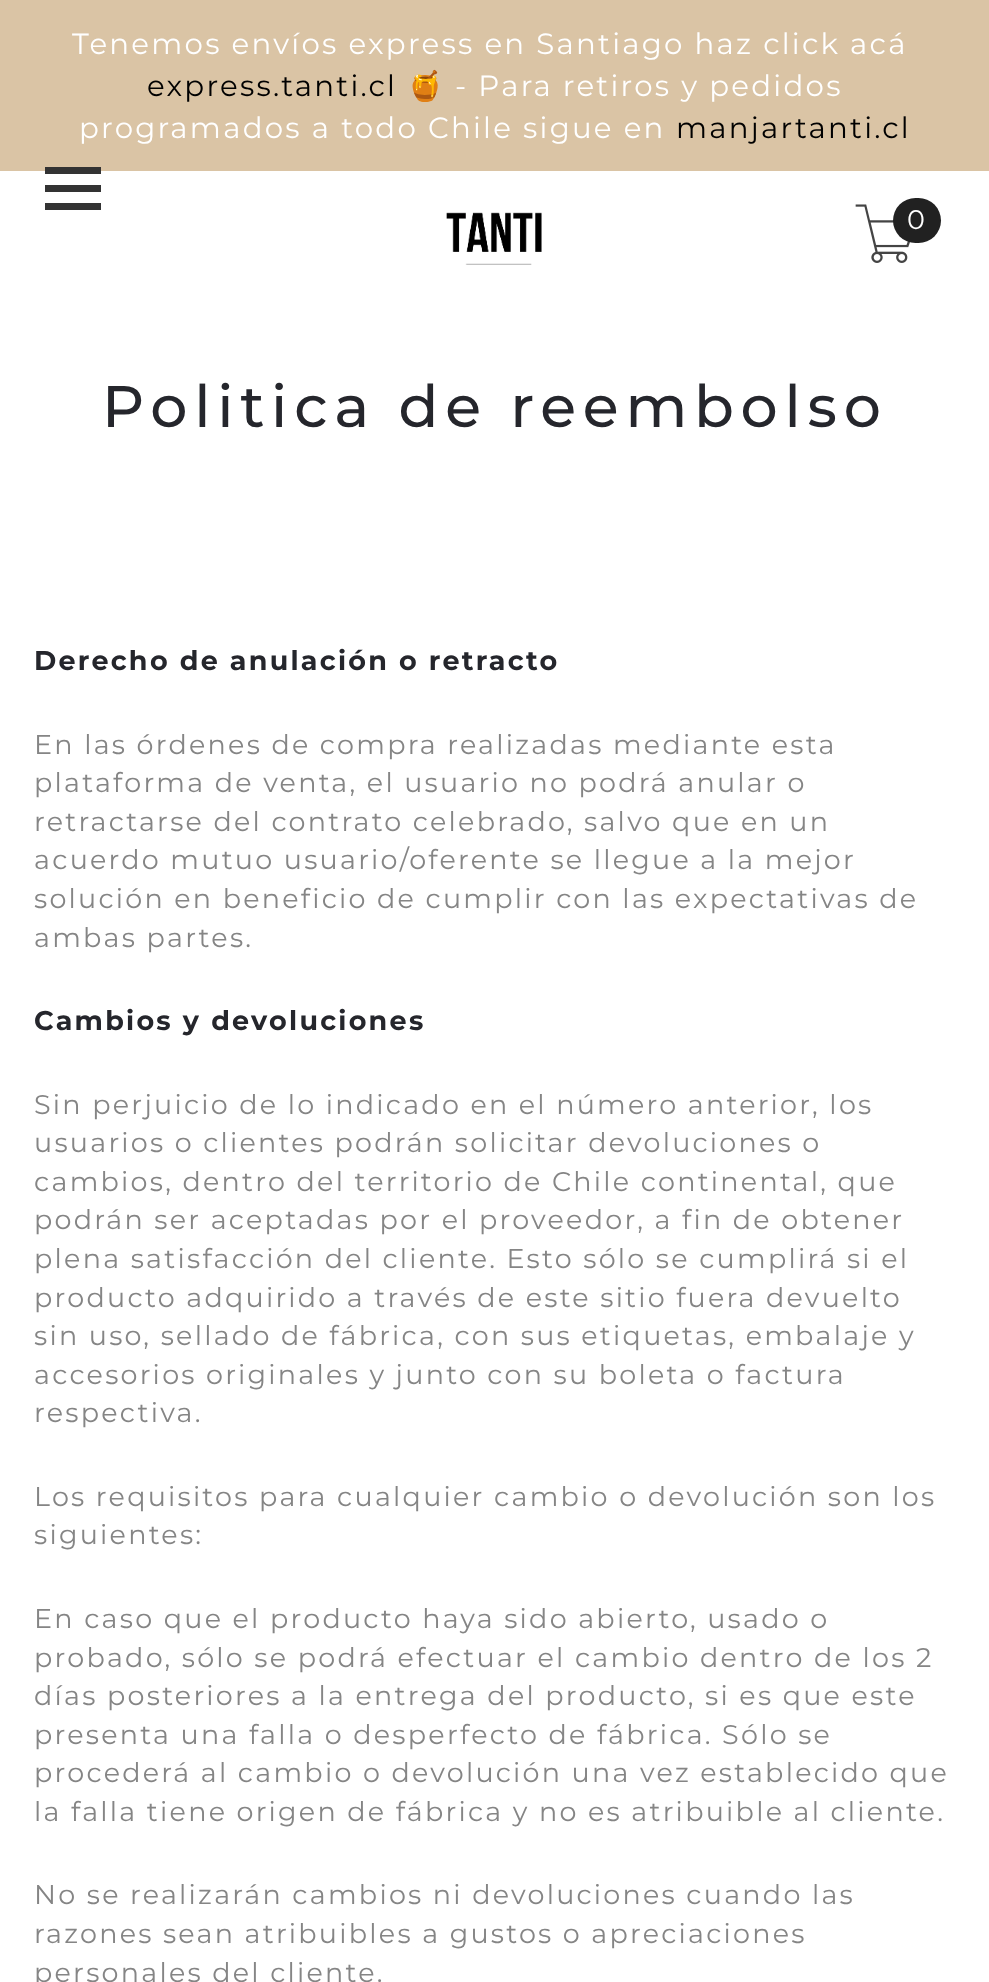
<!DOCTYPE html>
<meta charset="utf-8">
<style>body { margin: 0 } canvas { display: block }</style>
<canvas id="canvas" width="989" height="1982"></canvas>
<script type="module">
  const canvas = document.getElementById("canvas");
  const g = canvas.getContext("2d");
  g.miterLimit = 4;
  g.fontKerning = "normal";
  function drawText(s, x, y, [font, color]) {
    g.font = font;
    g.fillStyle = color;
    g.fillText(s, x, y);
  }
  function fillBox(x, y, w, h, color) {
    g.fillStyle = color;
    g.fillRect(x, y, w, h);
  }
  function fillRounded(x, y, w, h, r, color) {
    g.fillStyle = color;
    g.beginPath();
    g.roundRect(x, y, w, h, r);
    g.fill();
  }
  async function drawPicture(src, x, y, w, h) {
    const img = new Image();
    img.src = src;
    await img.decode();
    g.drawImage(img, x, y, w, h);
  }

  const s1 = ["29.25px Montserrat", "#FFFFFF"];
  const s2 = ["29.25px Montserrat", "#000000"];
  const s3 = ["29.25px Noto Color Emoji", "#FFFFFF"];
  const s4 = ["27px Montserrat", "#FFFFFF"];
  const s5 = ["500 58.5px Montserrat", "#25262C"];
  const s6 = ["bold 27px Montserrat", "#25262C"];
  const s7 = ["27px Montserrat", "#858585"];

  fillBox(0, 0, 989, 1982, "#FFFFFF");
  fillBox(0, 0, 989, 171, "#DAC4A5");
  g.letterSpacing = "2.25px";
  drawText("Tenemos envíos express en Santiago haz click acá", 72, 54, s1);
  drawText("express.tanti.cl", 147, 96, s2);
  drawText("🍯", 407, 96, s3);
  drawText("- Para retiros y pedidos", 455, 96, s1);
  drawText("programados a todo Chile sigue en", 79, 138, s1);
  drawText("manjartanti.cl", 676, 138, s2);
  fillBox(45, 167, 56, 7, "#333333");
  fillBox(45, 185, 56, 7, "#333333");
  fillBox(45, 203, 56, 7, "#333333");
  await drawPicture("pic1.png", 446, 212, 96, 53);
  await drawPicture("pic2.png", 855, 204, 55, 59);
  fillRounded(893, 198, 48, 45, 22.5, "#212121");
  drawText("0", 907, 229, s4);
  g.letterSpacing = "6.75px";
  drawText("Politica de reembolso", 102, 427, s5);
  g.letterSpacing = "2.25px";
  drawText("Derecho de anulación o retracto", 34, 670, s6);
  drawText("En las órdenes de compra realizadas mediante esta", 34, 754, s7);
  drawText("plataforma de venta, el usuario no podrá anular o", 34, 792, s7);
  drawText("retractarse del contrato celebrado, salvo que en un", 34, 831, s7);
  drawText("acuerdo mutuo usuario/oferente se llegue a la mejor", 34, 869, s7);
  drawText("solución en beneficio de cumplir con las expectativas de", 34, 908, s7);
  drawText("ambas partes.", 34, 947, s7);
  drawText("Cambios y devoluciones", 34, 1030, s6);
  drawText("Sin perjuicio de lo indicado en el número anterior, los", 34, 1114, s7);
  drawText("usuarios o clientes podrán solicitar devoluciones o", 34, 1152, s7);
  drawText("cambios, dentro del territorio de Chile continental, que", 34, 1191, s7);
  drawText("podrán ser aceptadas por el proveedor, a fin de obtener", 34, 1229, s7);
  drawText("plena satisfacción del cliente. Esto sólo se cumplirá si el", 34, 1268, s7);
  drawText("producto adquirido a través de este sitio fuera devuelto", 34, 1307, s7);
  drawText("sin uso, sellado de fábrica, con sus etiquetas, embalaje y", 34, 1345, s7);
  drawText("accesorios originales y junto con su boleta o factura", 34, 1384, s7);
  drawText("respectiva.", 34, 1422, s7);
  drawText("Los requisitos para cualquier cambio o devolución son los", 34, 1506, s7);
  drawText("siguientes:", 34, 1544, s7);
  drawText("En caso que el producto haya sido abierto, usado o", 34, 1628, s7);
  drawText("probado, sólo se podrá efectuar el cambio dentro de los 2", 34, 1667, s7);
  drawText("días posteriores a la entrega del producto, si es que este", 34, 1705, s7);
  drawText("presenta una falla o desperfecto de fábrica. Sólo se", 34, 1744, s7);
  drawText("procederá al cambio o devolución una vez establecido que", 34, 1782, s7);
  drawText("la falla tiene origen de fábrica y no es atribuible al cliente.", 34, 1821, s7);
  drawText("No se realizarán cambios ni devoluciones cuando las", 34, 1904, s7);
  drawText("razones sean atribuibles a gustos o apreciaciones", 34, 1943, s7);
  drawText("personales del cliente.", 34, 1982, s7);
</script>
